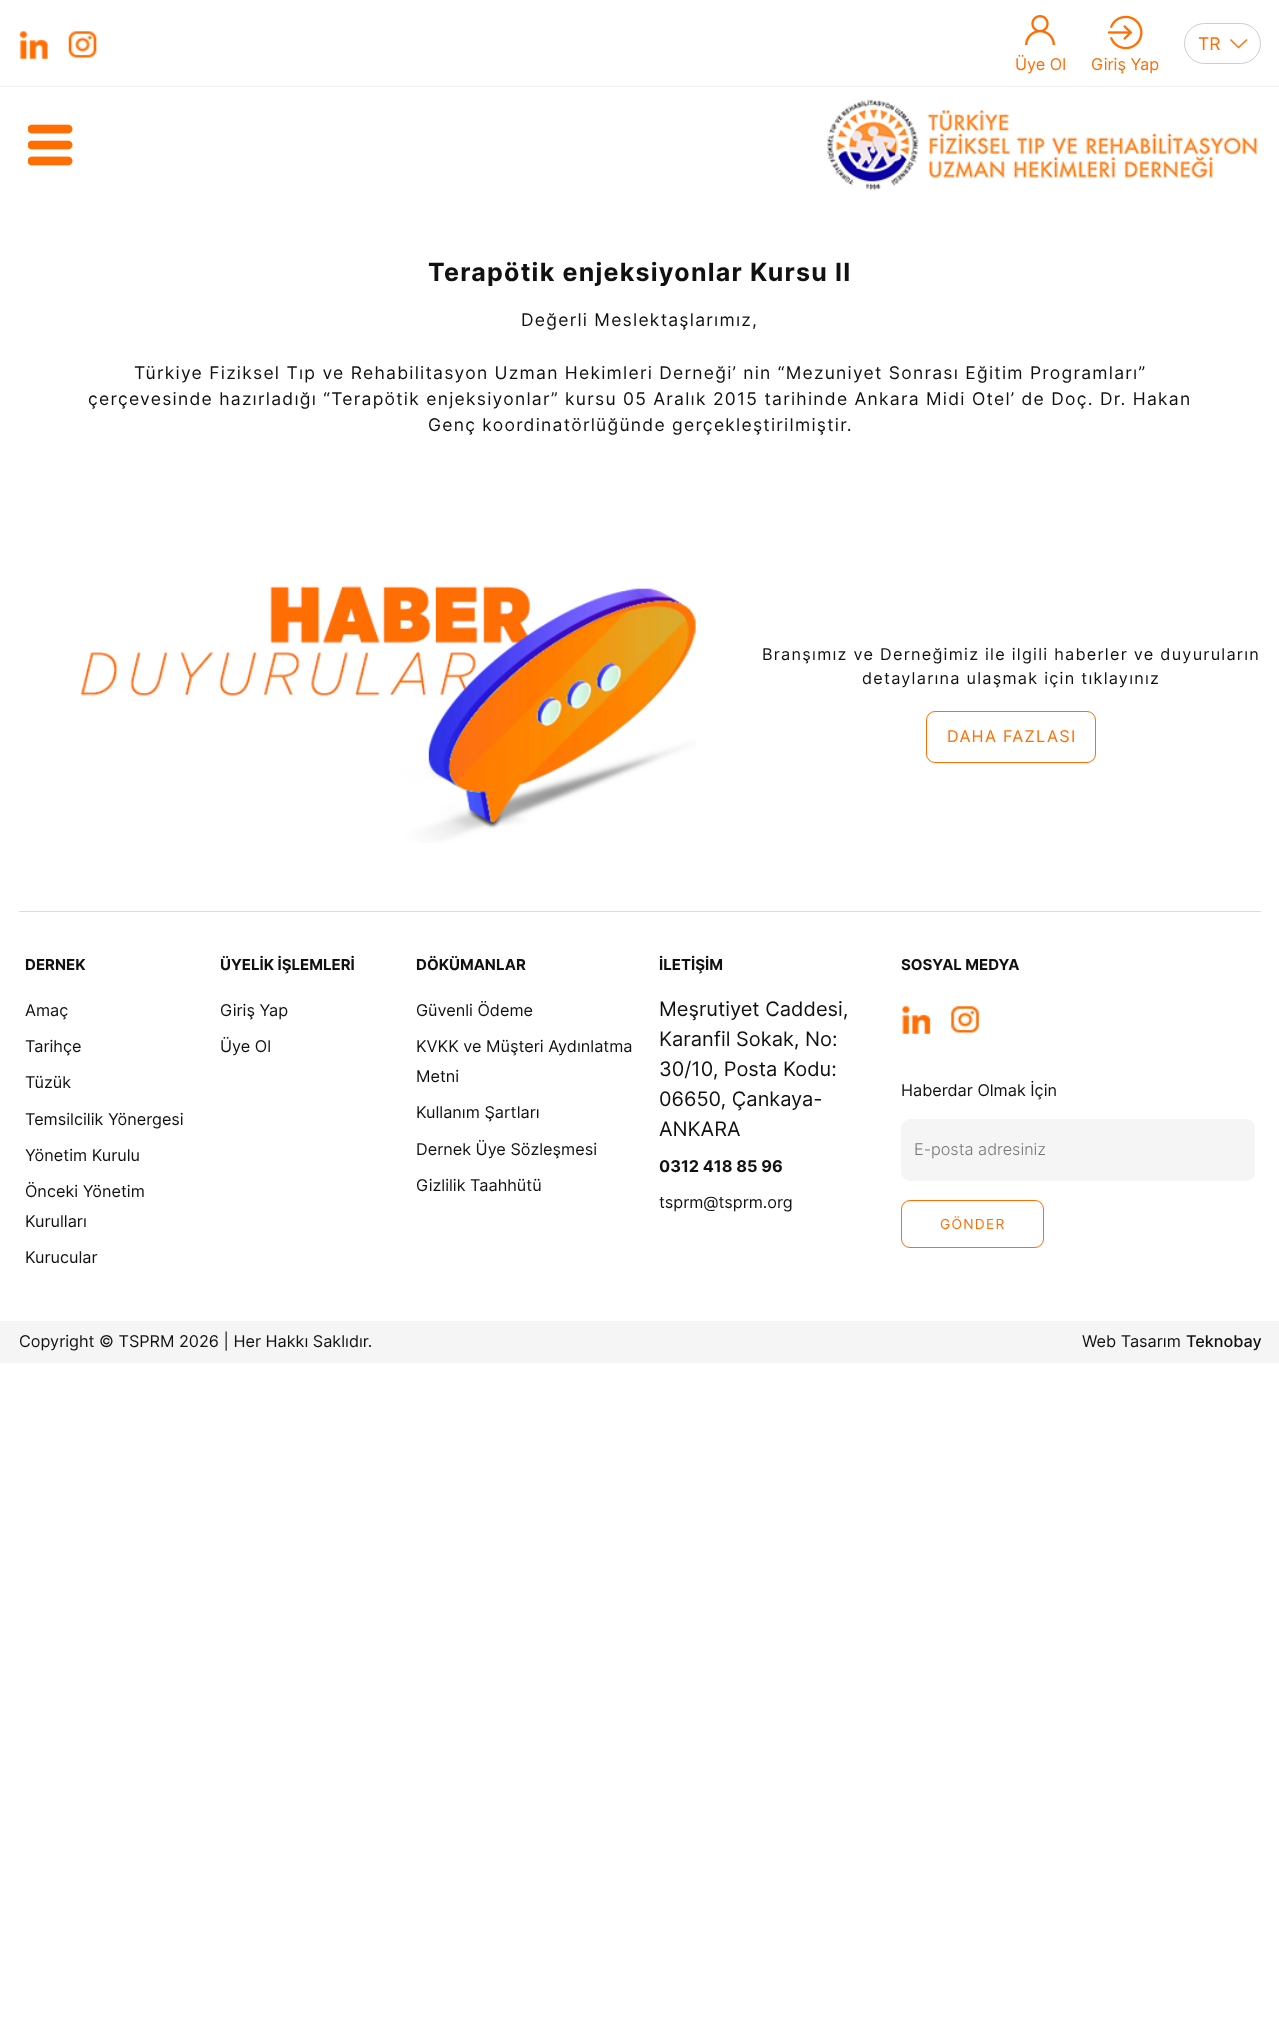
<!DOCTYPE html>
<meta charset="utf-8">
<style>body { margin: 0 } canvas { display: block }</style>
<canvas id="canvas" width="1279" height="2027"></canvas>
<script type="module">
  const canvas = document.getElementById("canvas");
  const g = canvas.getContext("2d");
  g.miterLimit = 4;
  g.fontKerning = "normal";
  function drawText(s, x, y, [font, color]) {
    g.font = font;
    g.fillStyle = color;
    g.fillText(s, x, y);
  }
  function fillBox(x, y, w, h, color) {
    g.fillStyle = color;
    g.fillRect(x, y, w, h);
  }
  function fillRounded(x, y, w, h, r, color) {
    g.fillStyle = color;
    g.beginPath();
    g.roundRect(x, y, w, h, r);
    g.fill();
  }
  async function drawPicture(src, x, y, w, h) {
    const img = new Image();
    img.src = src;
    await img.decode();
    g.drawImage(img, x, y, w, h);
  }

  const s1 = ["17.5px Inter", "#FF6E02"];
  const s2 = ["16.25px Inter", "#FF6E02"];
  const s3 = ["bold 25px Inter", "#111111"];
  const s4 = ["17.5px Inter", "#111111"];
  const s5 = ["16.25px Inter", "#111111"];
  const s6 = ["bold 15px Inter", "#111111"];
  const s7 = ["20px Inter", "#111111"];
  const s8 = ["bold 16.25px Inter", "#111111"];
  const s9 = ["300 16.25px Inter", "#757575"];
  const s10 = ["13.75px Inter", "#FF6E02"];
  const s11 = ["500 16.25px Inter", "#111111"];

  fillBox(0, 0, 1279, 2027, "#FFFFFF");
  fillBox(0, 86, 1279, 1, "#EEEEEE");
  await drawPicture("pic1.png", 19, 31, 29, 28);
  await drawPicture("pic2.png", 68, 31, 29, 27);
  g.fillStyle = "#FF6E02";
  g.beginPath();
  g.moveTo(1246.5, 39);
  g.lineTo(1238.5, 46.5);
  g.lineTo(1231, 39);
  g.lineTo(1230, 40);
  g.lineTo(1238.5, 48.5);
  g.lineTo(1247.5, 40);
  g.closePath();
  g.fill();
  g.beginPath();
  g.roundRect(1184.5, 23.5, 76, 40, 20);
  g.strokeStyle = "#CCCCCC";
  g.stroke();
  drawText("TR", 1198, 50, s1);
  await drawPicture("pic3.png", 1025, 15, 30, 30);
  drawText("Üye Ol", 1015, 70, s2);
  await drawPicture("pic4.png", 1108, 15, 35, 35);
  drawText("Giriş Yap", 1091, 70, s2);
  await drawPicture("pic5.png", 28, 124, 45, 42);
  await drawPicture("pic6.png", 826, 99, 432, 92);
  g.letterSpacing = "1.25px";
  drawText("Terapötik enjeksiyonlar Kursu II", 428, 281, s3);
  drawText("Değerli Meslektaşlarımız,", 521, 326, s4);
  drawText("Türkiye Fiziksel Tıp ve Rehabilitasyon Uzman Hekimleri Derneği’ nin “Mezuniyet Sonrası Eğitim Programları”", 134, 379, s4);
  drawText("çerçevesinde hazırladığı “Terapötik enjeksiyonlar” kursu 05 Aralık 2015 tarihinde Ankara Midi Otel’ de Doç. Dr. Hakan", 88, 405, s4);
  drawText("Genç koordinatörlüğünde gerçekleştirilmiştir.", 428, 431, s4);
  await drawPicture("pic7.png", 81, 586, 615, 257);
  drawText("Branşımız ve Derneğimiz ile ilgili haberler ve duyuruların", 762, 660, s5);
  drawText("detaylarına ulaşmak için tıklayınız", 862, 684, s5);
  g.beginPath();
  g.roundRect(926.5, 711.5, 169, 51, 8.5);
  g.strokeStyle = "#FF6E02";
  g.stroke();
  drawText("DAHA FAZLASI", 947, 742, s2);
  fillBox(19, 911, 1242, 1, "#DDDDDD");
  g.letterSpacing = "0px";
  drawText("DERNEK", 25, 970, s6);
  drawText("Amaç", 25, 1016, s5);
  drawText("Tarihçe", 25, 1052, s5);
  drawText("Tüzük", 25, 1088, s5);
  drawText("Temsilcilik Yönergesi", 25, 1125, s5);
  drawText("Yönetim Kurulu", 25, 1161, s5);
  drawText("Önceki Yönetim", 25, 1197, s5);
  drawText("Kurulları", 25, 1227, s5);
  drawText("Kurucular", 25, 1263, s5);
  drawText("ÜYELİK İŞLEMLERİ", 220, 970, s6);
  drawText("Giriş Yap", 220, 1016, s5);
  drawText("Üye Ol", 220, 1052, s5);
  drawText("DÖKÜMANLAR", 416, 970, s6);
  drawText("Güvenli Ödeme", 416, 1016, s5);
  drawText("KVKK ve Müşteri Aydınlatma", 416, 1052, s5);
  drawText("Metni", 416, 1082, s5);
  drawText("Kullanım Şartları", 416, 1118, s5);
  drawText("Dernek Üye Sözleşmesi", 416, 1155, s5);
  drawText("Gizlilik Taahhütü", 416, 1191, s5);
  drawText("İLETİŞİM", 659, 970, s6);
  drawText("Meşrutiyet Caddesi,", 659, 1016, s7);
  drawText("Karanfil Sokak, No:", 659, 1046, s7);
  drawText("30/10, Posta Kodu:", 659, 1076, s7);
  drawText("06650, Çankaya-", 659, 1106, s7);
  drawText("ANKARA", 659, 1136, s7);
  drawText("0312 418 85 96", 659, 1172, s8);
  drawText("tsprm@tsprm.org", 659, 1208, s5);
  drawText("SOSYAL MEDYA", 901, 970, s6);
  await drawPicture("pic8.png", 902, 1006, 29, 28);
  await drawPicture("pic9.png", 951, 1006, 28, 27);
  drawText("Haberdar Olmak İçin", 901, 1096, s5);
  fillRounded(901, 1119, 354, 62, 9, "#F5F5F5");
  drawText("E-posta adresiniz", 914, 1155, s9);
  g.beginPath();
  g.roundRect(901.5, 1200.5, 142, 47, 8.5);
  g.stroke();
  g.letterSpacing = "1.25px";
  drawText("GÖNDER", 940, 1229, s10);
  fillBox(0, 1321, 1279, 42, "#F5F5F5");
  g.letterSpacing = "0px";
  drawText("Copyright © TSPRM 2026 | Her Hakkı Saklıdır.", 19, 1347, s5);
  drawText("Web Tasarım", 1082, 1347, s5);
  drawText("Teknobay", 1186, 1347, s11);
</script>
